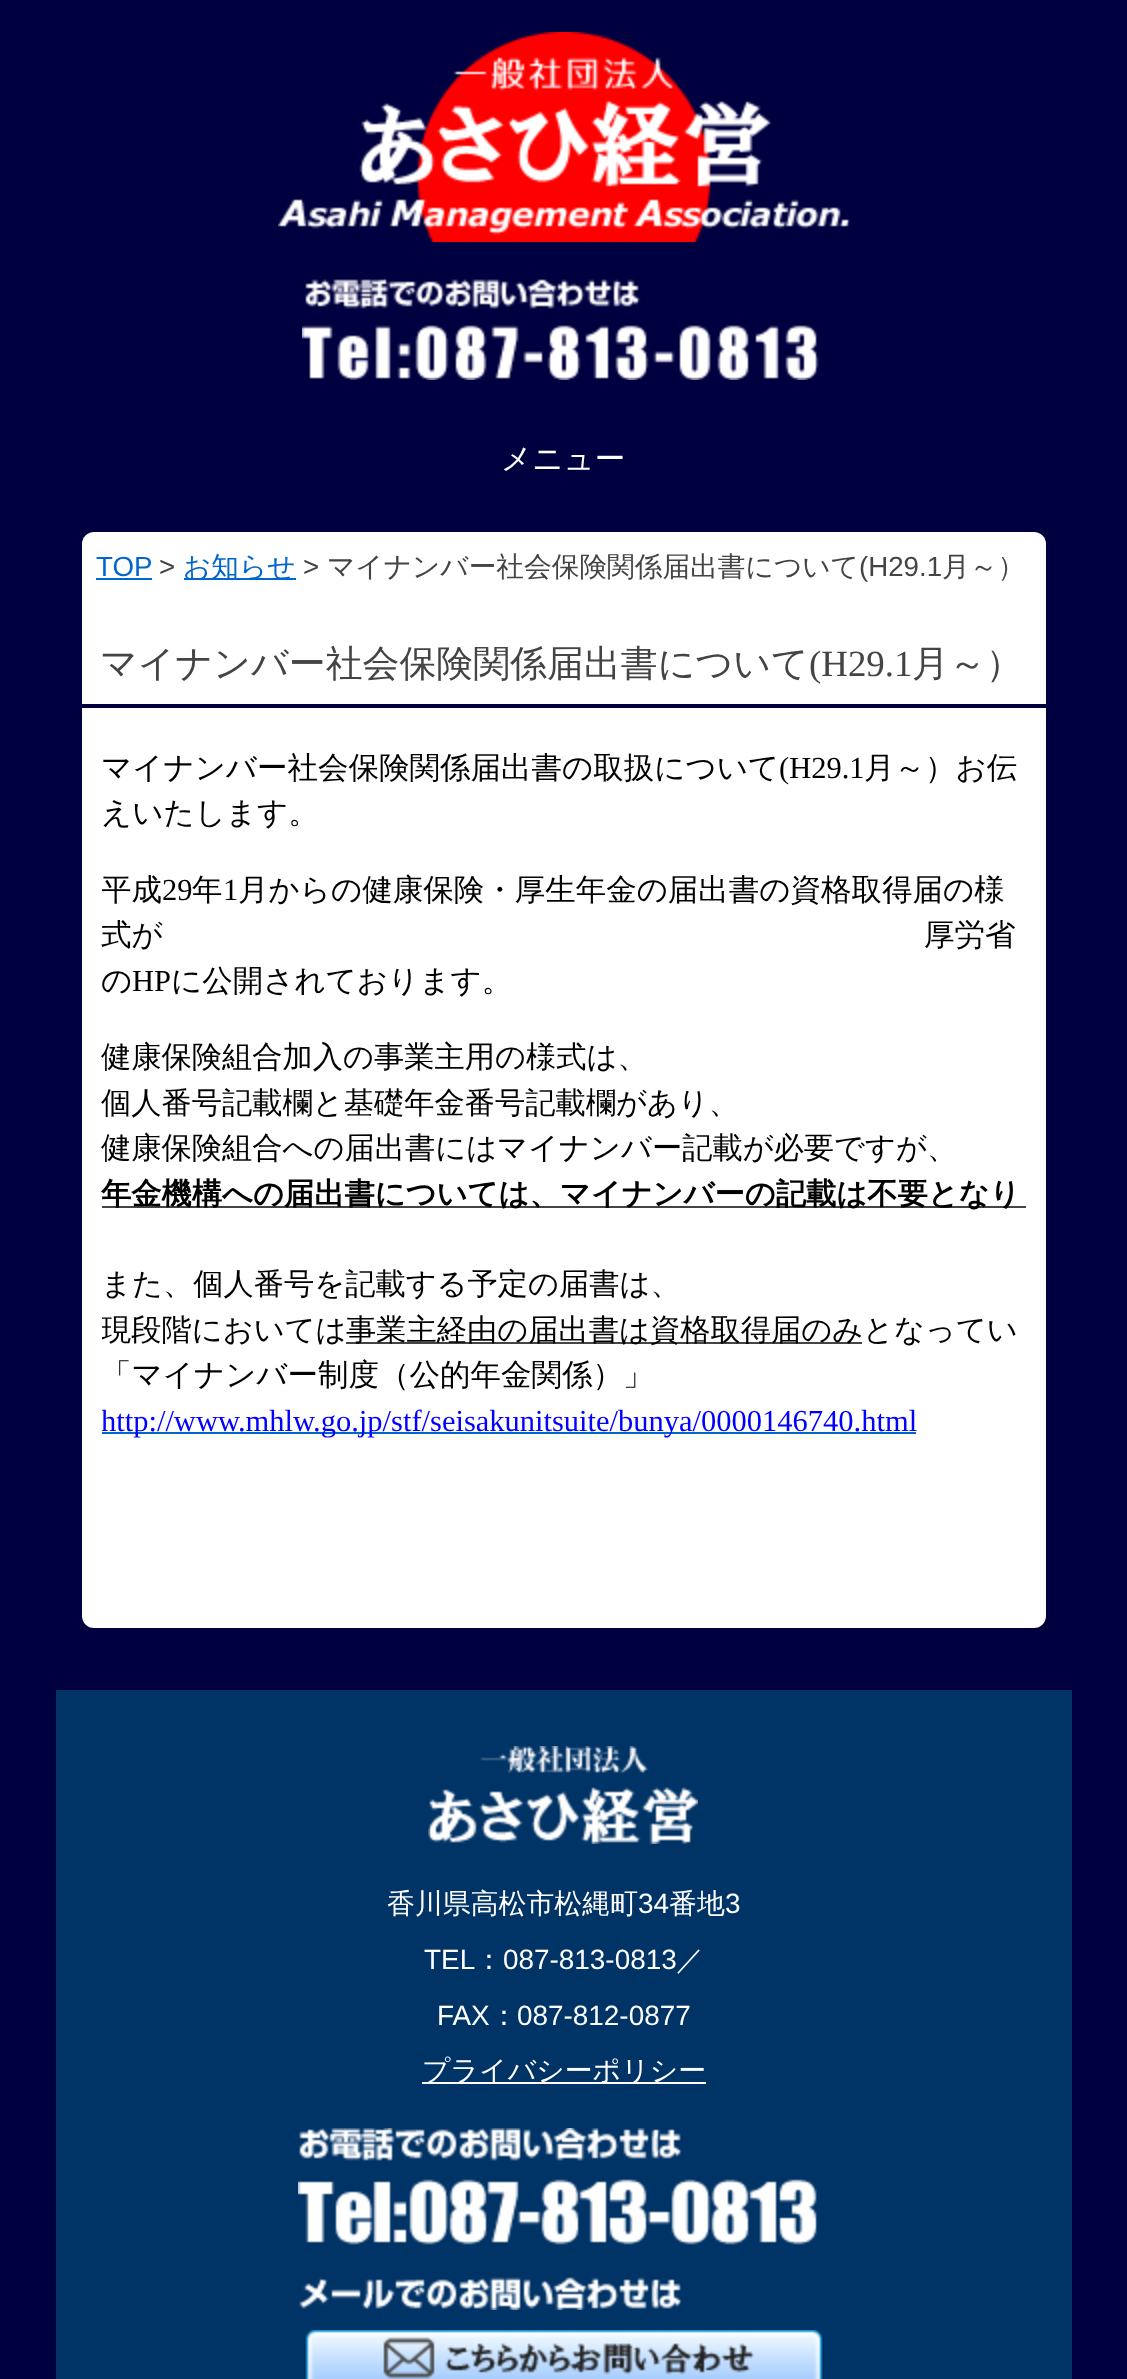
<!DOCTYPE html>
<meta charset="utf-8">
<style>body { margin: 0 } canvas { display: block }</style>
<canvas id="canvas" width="1127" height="2379"></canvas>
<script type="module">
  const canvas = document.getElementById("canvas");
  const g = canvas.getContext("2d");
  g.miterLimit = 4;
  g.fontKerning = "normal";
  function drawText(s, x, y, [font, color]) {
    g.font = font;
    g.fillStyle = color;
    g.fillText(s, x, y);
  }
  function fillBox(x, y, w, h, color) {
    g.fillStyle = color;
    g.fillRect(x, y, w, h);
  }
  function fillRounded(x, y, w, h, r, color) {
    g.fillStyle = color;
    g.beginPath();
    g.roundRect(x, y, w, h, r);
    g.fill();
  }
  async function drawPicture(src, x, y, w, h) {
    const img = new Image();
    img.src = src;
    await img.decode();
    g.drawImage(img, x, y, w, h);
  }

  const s1 = ["500 30.5px WenQuanYi Zen Hei", "#FFFFFF"];
  const s2 = ["27.7px Liberation Sans", "#0066CC"];
  const s3 = ["27.7px Liberation Sans", "#444444"];
  const s4 = ["500 27.7px WenQuanYi Zen Hei", "#0066CC"];
  const s5 = ["500 27.7px WenQuanYi Zen Hei", "#444444"];
  const s6 = ["500 36.9px WenQuanYi Zen Hei", "#444444"];
  const s7 = ["36.9px Liberation Serif", "#444444"];
  const s8 = ["500 30.5px WenQuanYi Zen Hei", "#000000"];
  const s9 = ["30.5px Liberation Serif", "#000000"];
  const s10 = ["500 30.25px WenQuanYi Zen Hei", "#000000"];
  const s11 = ["bold 30.25px WenQuanYi Zen Hei", "#000000"];
  const s12 = ["30.5px Liberation Serif", "#0000FF"];
  const s13 = ["500 27.9px WenQuanYi Zen Hei", "#FFFFFF"];
  const s14 = ["27.9px Liberation Sans", "#FFFFFF"];

  fillBox(0, 0, 1127, 2379, "#000040");
  await drawPicture("pic1.png", 278, 32, 572, 210);
  await drawPicture("pic2.png", 302, 278, 517, 102);
  drawText("メニュー", 501, 469, s1);
  fillRounded(82, 532, 964, 1096, 12, "#FFFFFF");
  drawText("TOP", 96, 576, s2);
  fillBox(96, 578, 56, 2, "#0066CC");
  drawText(">", 159, 576, s3);
  fillBox(184, 578, 112, 2, "#0066CC");
  drawText("お知らせ", 183, 576, s4);
  drawText(">", 303, 576, s3);
  drawText("マイナンバー社会保険関係届出書について", 327, 576, s5);
  drawText("(H29.1", 859, 576, s3);
  drawText("月～）", 942, 576, s5);
  fillBox(82, 704, 964, 4, "#000040");
  drawText("マイナンバー社会保険関係届出書について", 100, 676, s6);
  drawText("(H29.1", 809, 676, s7);
  drawText("月～）", 912, 676, s6);
  drawText("マイナンバー社会保険関係届出書の取扱について", 101, 778, s8);
  drawText("(H29.1", 779, 778, s9);
  drawText("月～）お伝", 864, 778, s8);
  drawText("えいたします。", 101, 823, s8);
  g.save();
  g.beginPath();
  g.rect(102, 746, 924, 882);
  g.clip();
  drawText("平成", 101, 900, s8);
  g.restore();
  drawText("29", 162, 900, s9);
  drawText("年", 192, 900, s8);
  drawText("1", 223, 900, s9);
  drawText("月からの健康保険・厚生年金の届出書の資格取得届の様", 238, 900, s8);
  drawText("式が", 101, 945, s8);
  drawText("厚労省", 924, 945, s8);
  drawText("の", 101, 991, s8);
  drawText("HP", 132, 991, s9);
  drawText("に公開されております。", 171, 991, s8);
  drawText("健康保険組合加入の事業主用の様式は、", 101, 1067, s10);
  drawText("個人番号記載欄と基礎年金番号記載欄があり、", 101, 1113, s10);
  drawText("健康保険組合への届出書にはマイナンバー記載が必要ですが、", 101, 1158, s10);
  fillBox(102, 1206, 924, 2, "#444444");
  drawText("年金機構への届出書については、マイナンバーの記載は不要となり", 101, 1204, s11);
  drawText("また、個人番号を記載する予定の届書は、", 101, 1294, s10);
  g.save();
  g.beginPath();
  g.rect(102, 746, 924, 882);
  g.clip();
  drawText("現段階においては", 101, 1340, s10);
  g.restore();
  fillBox(346, 1342, 516, 2, "#444444");
  drawText("事業主経由の届出書は資格取得届のみ", 346, 1340, s10);
  drawText("となってい", 863, 1340, s10);
  drawText("「マイナンバー制度（公的年金関係）」", 101, 1385, s8);
  fillBox(102, 1432, 814, 2, "#0066CC");
  g.save();
  g.beginPath();
  g.rect(102, 746, 924, 882);
  g.clip();
  drawText("http://www.mhlw.go.jp/stf/seisakunitsuite/bunya/0000146740.html", 101, 1431, s12);
  g.restore();
  fillBox(56, 1690, 1016, 689, "#003366");
  await drawPicture("pic3.png", 428, 1746, 270, 98);
  drawText("香川県高松市松縄町", 387, 1913, s13);
  drawText("34", 638, 1913, s14);
  drawText("番地", 669, 1913, s13);
  drawText("3", 725, 1913, s14);
  drawText("TEL", 424, 1969, s14);
  drawText("：", 475, 1969, s13);
  drawText("087-813-0813", 503, 1969, s14);
  drawText("／", 676, 1969, s13);
  drawText("FAX", 437, 2025, s14);
  drawText("：", 490, 2025, s13);
  drawText("087-812-0877", 517, 2025, s14);
  fillBox(422, 2082, 284, 2, "#FFFFFF");
  drawText("プライバシーポリシー", 422, 2080, s13);
  await drawPicture("pic4.png", 298, 2128, 519, 182);
  await drawPicture("pic5.png", 304, 2330, 520, 49);
</script>
